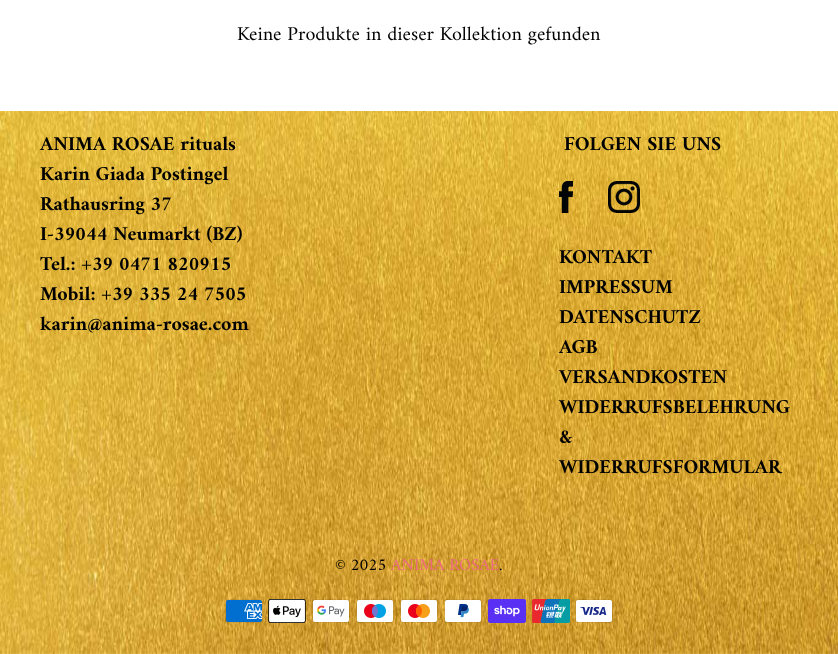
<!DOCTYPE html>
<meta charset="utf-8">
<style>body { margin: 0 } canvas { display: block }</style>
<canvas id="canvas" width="838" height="654"></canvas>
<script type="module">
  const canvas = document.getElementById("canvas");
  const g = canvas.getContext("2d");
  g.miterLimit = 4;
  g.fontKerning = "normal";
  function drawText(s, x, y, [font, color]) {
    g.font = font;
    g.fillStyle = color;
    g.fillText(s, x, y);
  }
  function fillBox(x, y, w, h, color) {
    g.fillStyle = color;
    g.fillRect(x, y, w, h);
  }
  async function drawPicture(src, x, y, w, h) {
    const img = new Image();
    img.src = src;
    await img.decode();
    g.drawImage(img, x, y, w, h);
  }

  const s1 = ["20px Amiri", "#000000"];
  const s2 = ["bold 20px Amiri", "#000000"];
  const s3 = ["16.75px Amiri", "#000000"];
  const s4 = ["16.75px Amiri", "#ED6981"];

  fillBox(0, 0, 838, 654, "#FFFFFF");
  drawText("Keine Produkte in dieser Kollektion gefunden", 237, 40, s1);
  await drawPicture("pic1.png", 0, 111, 838, 543);
  drawText("ANIMA ROSAE rituals", 40, 150, s2);
  drawText("Karin Giada Postingel", 40, 180, s2);
  drawText("Rathausring 37", 40, 210, s2);
  drawText("I-39044 Neumarkt (BZ)", 40, 240, s2);
  drawText("Tel.: +39 0471 820915", 40, 270, s2);
  drawText("Mobil: +39 335 24 7505", 40, 300, s2);
  drawText("karin@anima-rosae.com", 40, 330, s2);
  drawText("FOLGEN SIE UNS", 564, 150, s2);
  await drawPicture("pic2.png", 559, 181, 14, 32);
  await drawPicture("pic3.png", 608, 181, 32, 32);
  drawText("KONTAKT", 559, 263, s2);
  drawText("IMPRESSUM", 559, 293, s2);
  drawText("DATENSCHUTZ", 559, 323, s2);
  drawText("AGB", 559, 353, s2);
  drawText("VERSANDKOSTEN", 559, 383, s2);
  drawText("WIDERRUFSBELEHRUNG", 559, 413, s2);
  drawText("&", 559, 443, s2);
  drawText("WIDERRUFSFORMULAR", 559, 473, s2);
  drawText("© 2025", 335, 570, s3);
  drawText("ANIMA ROSAE", 391, 570, s4);
  drawText(".", 499, 570, s3);
  await drawPicture("pic4.png", 225, 599, 38, 24);
  await drawPicture("pic5.png", 268, 599, 38, 24);
  await drawPicture("pic6.png", 312, 599, 38, 24);
  await drawPicture("pic7.png", 356, 599, 38, 24);
  await drawPicture("pic8.png", 400, 599, 38, 24);
  await drawPicture("pic9.png", 444, 599, 38, 24);
  await drawPicture("pic10.png", 488, 599, 38, 24);
  await drawPicture("pic11.png", 532, 599, 38, 24);
  await drawPicture("pic12.png", 575, 599, 38, 24);
</script>
